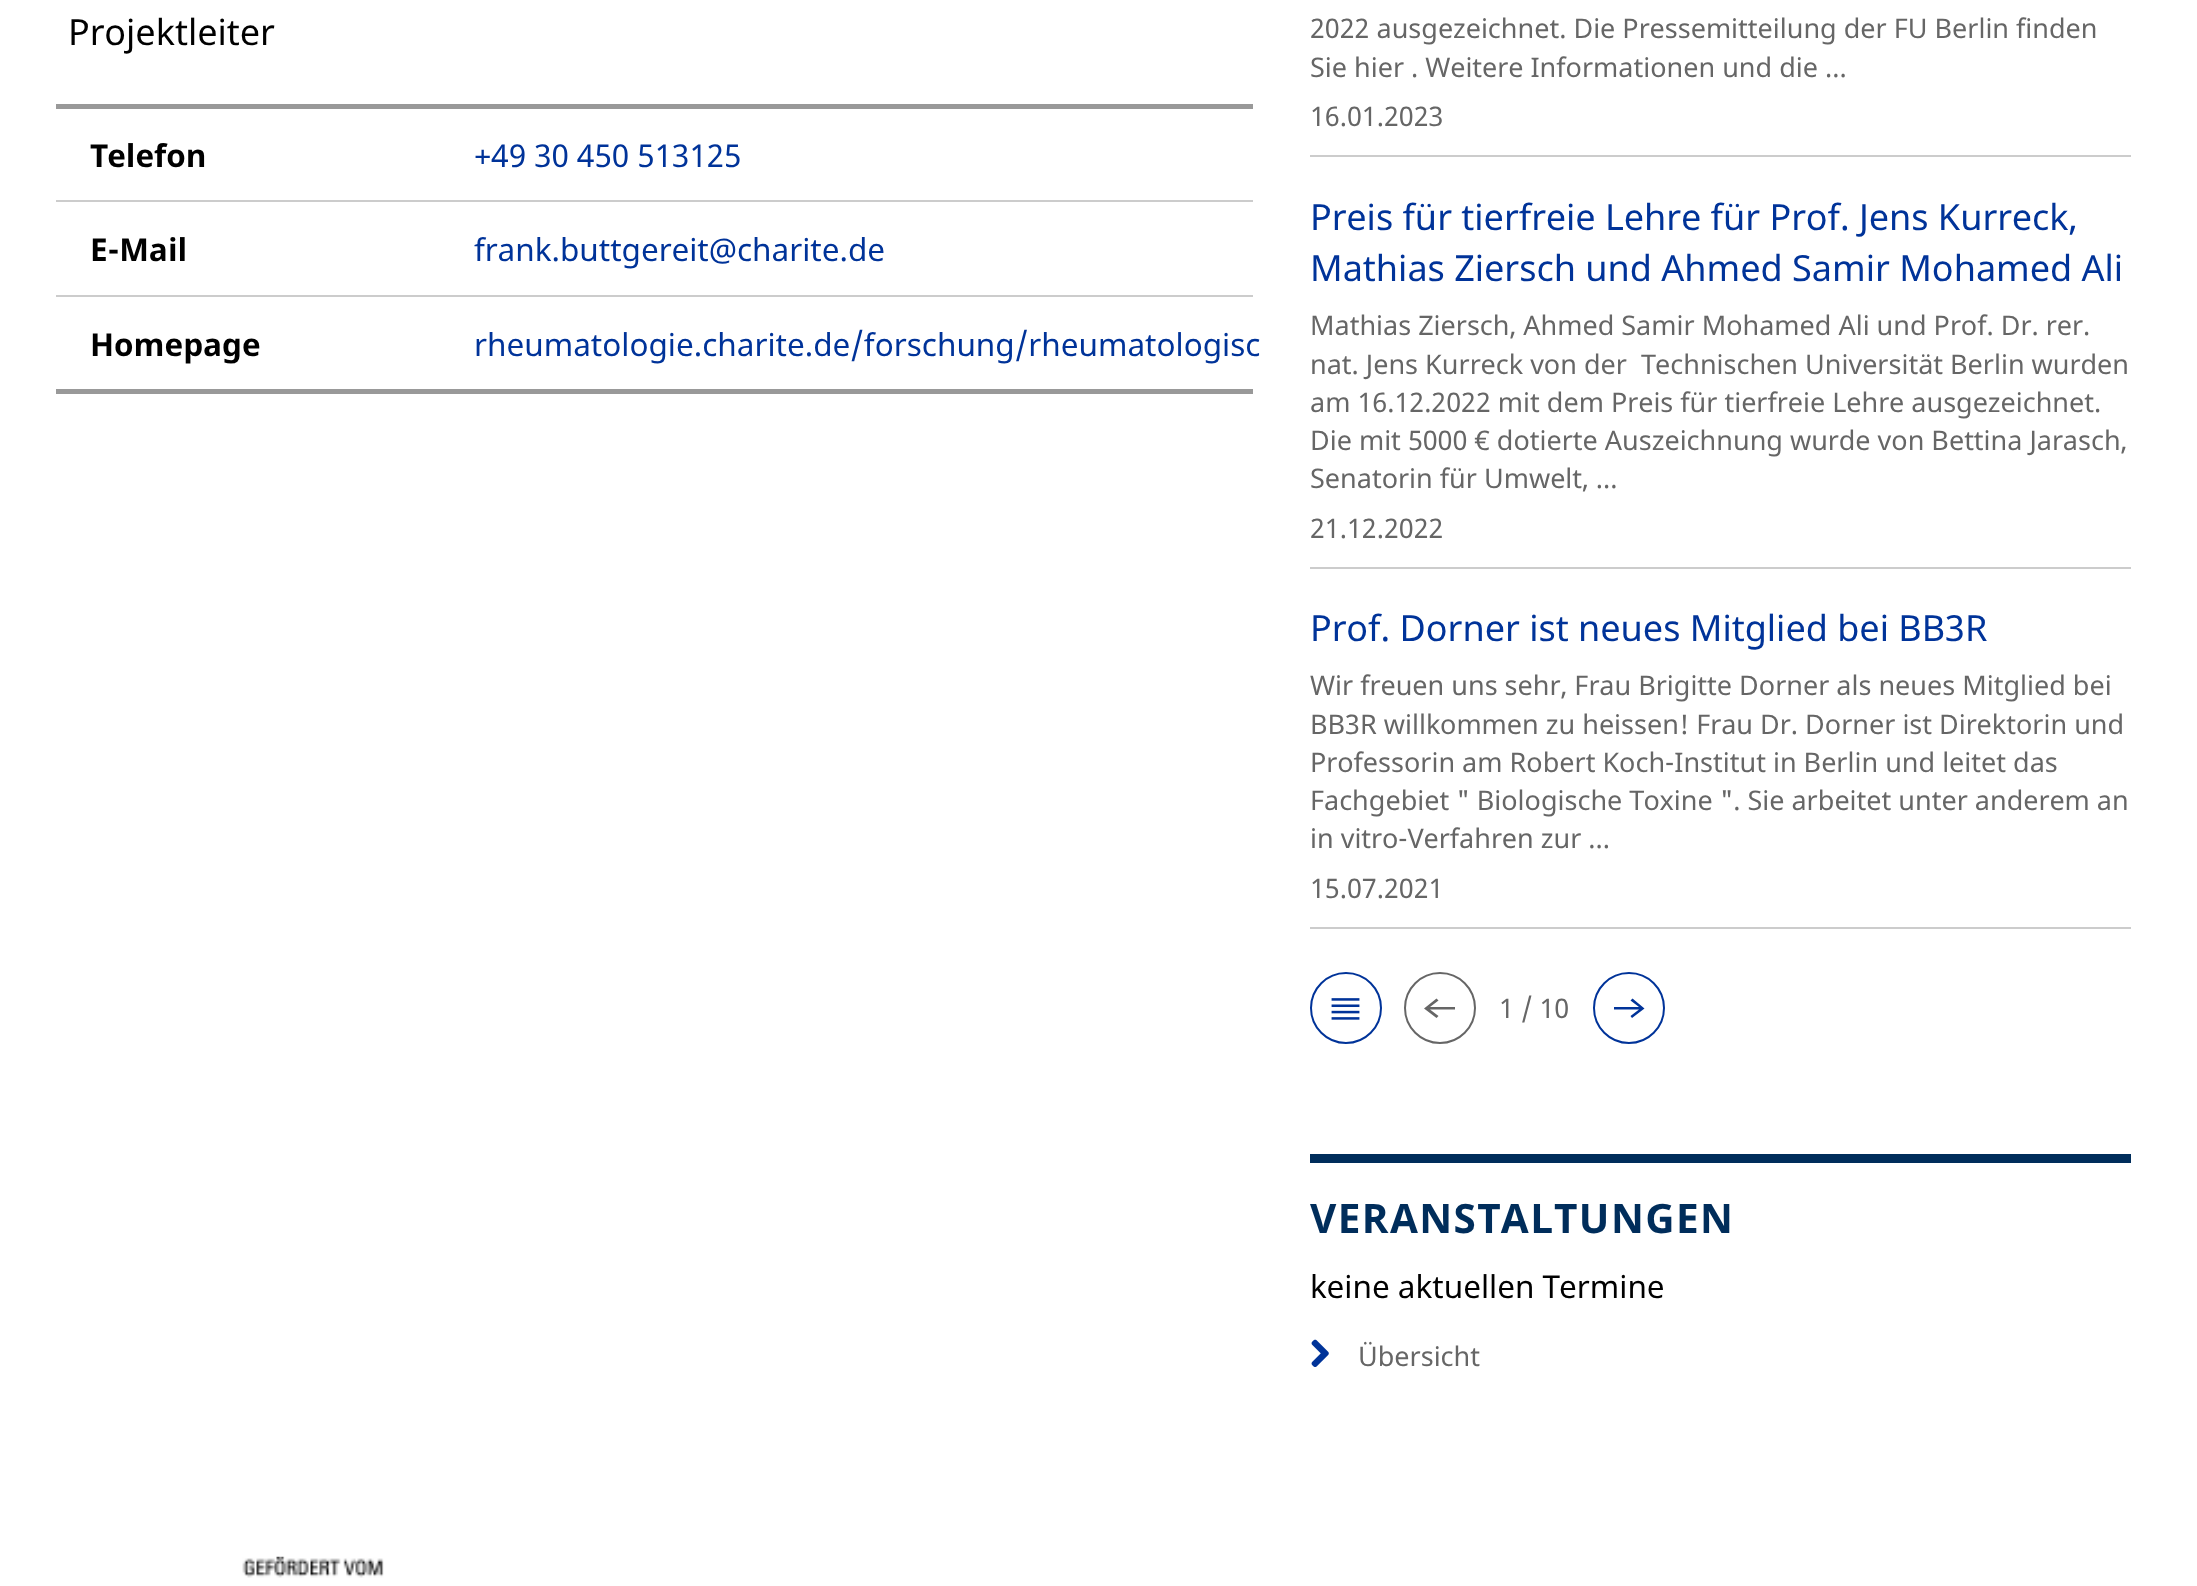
<!DOCTYPE html>
<meta charset="utf-8">
<style>body { margin: 0 } canvas { display: block }</style>
<canvas id="canvas" width="2197" height="1586"></canvas>
<script type="module">
  const canvas = document.getElementById("canvas");
  const g = canvas.getContext("2d");
  g.miterLimit = 4;
  g.fontKerning = "normal";
  function drawText(s, x, y, [font, color]) {
    g.font = font;
    g.fillStyle = color;
    g.fillText(s, x, y);
  }
  function fillBox(x, y, w, h, color) {
    g.fillStyle = color;
    g.fillRect(x, y, w, h);
  }
  async function drawPicture(src, x, y, w, h) {
    const img = new Image();
    img.src = src;
    await img.decode();
    g.drawImage(img, x, y, w, h);
  }

  const s1 = ["36px Noto Sans", "#000000"];
  const s2 = ["bold 31.5px Noto Sans", "#000000"];
  const s3 = ["31.5px Noto Sans", "#003399"];
  const s4 = ["27px Noto Sans", "#666666"];
  const s5 = ["36px Noto Sans", "#003399"];
  const s6 = ["bold 40.5px Noto Sans", "#002D5B"];
  const s7 = ["31.5px Noto Sans", "#000000"];

  fillBox(0, 0, 2197, 1586, "#FFFFFF");
  drawText("Projektleiter", 68, 45, s1);
  fillBox(56, 104, 1197, 5, "#999999");
  fillBox(56, 200, 1197, 2, "#CCCCCC");
  drawText("Telefon", 90, 167, s2);
  drawText("+49 30 450 513125", 474, 167, s3);
  fillBox(56, 295, 1197, 2, "#CCCCCC");
  drawText("E-Mail", 90, 261, s2);
  drawText("frank.buttgereit@charite.de", 474, 261, s3);
  fillBox(56, 389, 1197, 5, "#999999");
  drawText("Homepage", 90, 356, s2);
  drawText("rheumatologie.charite.de/forschung/rheumatologisc", 474, 356, s3);
  fillBox(1310, 155, 821, 2, "#CCCCCC");
  drawText("2022 ausgezeichnet. Die Pressemitteilung der FU Berlin finden", 1310, 38, s4);
  drawText("Sie hier . Weitere Informationen und die ...", 1310, 77, s4);
  drawText("16.01.2023", 1310, 126, s4);
  fillBox(1310, 567, 821, 2, "#CCCCCC");
  drawText("Preis für tierfreie Lehre für Prof. Jens Kurreck,", 1310, 230, s5);
  drawText("Mathias Ziersch und Ahmed Samir Mohamed Ali", 1310, 281, s5);
  drawText("Mathias Ziersch, Ahmed Samir Mohamed Ali und Prof. Dr. rer.", 1310, 335, s4);
  drawText("nat. Jens Kurreck von der  Technischen Universität Berlin wurden", 1310, 374, s4);
  drawText("am 16.12.2022 mit dem Preis für tierfreie Lehre ausgezeichnet.", 1310, 412, s4);
  drawText("Die mit 5000 € dotierte Auszeichnung wurde von Bettina Jarasch,", 1310, 450, s4);
  drawText("Senatorin für Umwelt, ...", 1310, 488, s4);
  drawText("21.12.2022", 1310, 538, s4);
  fillBox(1310, 927, 821, 2, "#CCCCCC");
  drawText("Prof. Dorner ist neues Mitglied bei BB3R", 1310, 641, s5);
  drawText("Wir freuen uns sehr, Frau Brigitte Dorner als neues Mitglied bei", 1310, 695, s4);
  drawText("BB3R willkommen zu heissen! Frau Dr. Dorner ist Direktorin und", 1310, 734, s4);
  drawText("Professorin am Robert Koch-Institut in Berlin und leitet das", 1310, 772, s4);
  drawText("Fachgebiet \" Biologische Toxine \". Sie arbeitet unter anderem an", 1310, 810, s4);
  drawText("in vitro-Verfahren zur ...", 1310, 848, s4);
  drawText("15.07.2021", 1310, 898, s4);
  g.beginPath();
  g.arc(1346, 1008, 35, 0, Math.PI * 2);
  g.strokeStyle = "#003399";
  g.lineWidth = 2;
  g.stroke();
  await drawPicture("pic1.png", 1331, 998, 29, 22);
  g.beginPath();
  g.arc(1440, 1008, 35, 0, Math.PI * 2);
  g.strokeStyle = "#666666";
  g.stroke();
  g.beginPath();
  g.moveTo(1455, 1007);
  g.lineTo(1430, 1007);
  g.lineTo(1438.5, 1000.5);
  g.lineTo(1436.5, 998.5);
  g.lineTo(1424, 1008.5);
  g.lineTo(1436.5, 1018);
  g.lineTo(1438.5, 1016);
  g.lineTo(1430, 1009.5);
  g.lineTo(1455, 1009.5);
  g.closePath();
  g.fill();
  drawText("1 / 10", 1499, 1018, s4);
  g.beginPath();
  g.arc(1629, 1008, 35, 0, Math.PI * 2);
  g.strokeStyle = "#003399";
  g.stroke();
  g.fillStyle = "#003399";
  g.beginPath();
  g.moveTo(1632.5, 998.5);
  g.lineTo(1630.5, 1000.5);
  g.lineTo(1639, 1007);
  g.lineTo(1614, 1007);
  g.lineTo(1614, 1009.5);
  g.lineTo(1639, 1009.5);
  g.lineTo(1630.5, 1016);
  g.lineTo(1632, 1018);
  g.lineTo(1644.5, 1008.5);
  g.closePath();
  g.fill();
  fillBox(1310, 1154, 821, 9, "#002D5B");
  g.letterSpacing = "1.4px";
  drawText("VERANSTALTUNGEN", 1310, 1233, s6);
  g.letterSpacing = "0px";
  drawText("keine aktuellen Termine", 1310, 1298, s7);
  await drawPicture("pic2.png", 1311, 1339, 18, 28);
  drawText("Übersicht", 1358, 1366, s4);
  await drawPicture("pic3.png", 242, 1556, 142, 22);
</script>
